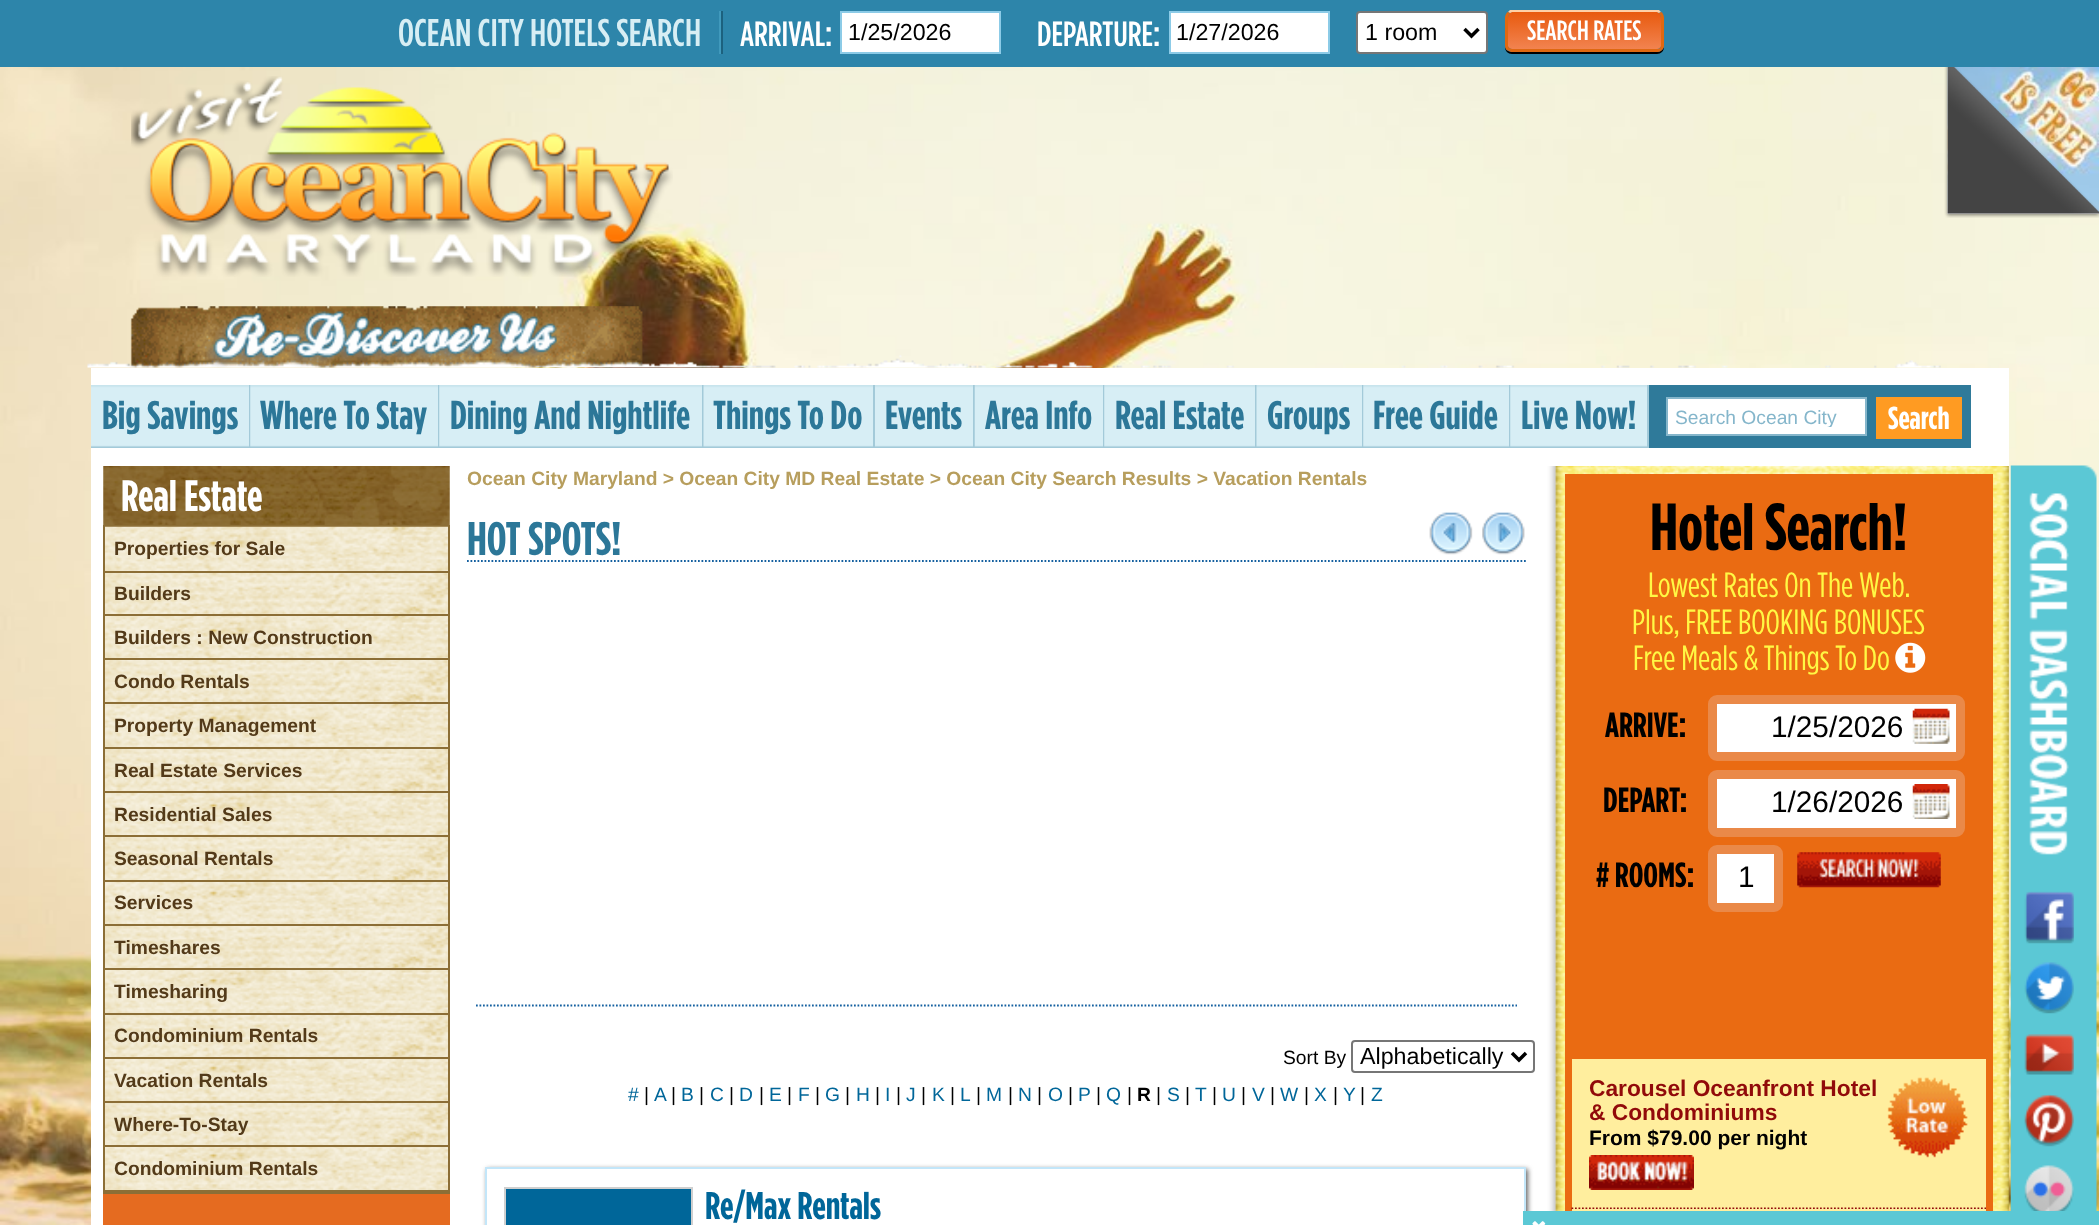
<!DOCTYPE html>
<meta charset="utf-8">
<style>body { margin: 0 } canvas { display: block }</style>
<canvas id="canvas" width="2099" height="1225"></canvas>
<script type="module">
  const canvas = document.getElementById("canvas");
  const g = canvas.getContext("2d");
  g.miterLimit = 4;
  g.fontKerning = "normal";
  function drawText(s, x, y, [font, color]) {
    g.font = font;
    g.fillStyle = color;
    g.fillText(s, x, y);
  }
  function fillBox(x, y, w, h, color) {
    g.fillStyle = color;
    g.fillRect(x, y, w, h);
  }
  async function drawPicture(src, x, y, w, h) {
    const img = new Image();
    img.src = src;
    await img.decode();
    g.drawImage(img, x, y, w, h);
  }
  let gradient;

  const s1 = ["500 38.5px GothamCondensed", "#D7EEF4"];
  const s2 = ["500 35px GothamCondensed", "#FFFFFF"];
  const s3 = ["23.25px Liberation Sans", "#000000"];
  const s4 = ["500 28px GothamCondensed", "#FFFFFF"];
  const s5 = ["bold 40.25px GothamCondensed", "#2C7798"];
  const s6 = ["19.25px Liberation Sans", "#85B6CB"];
  const s7 = ["bold 32px GothamCondensed", "#FFFFFF"];
  const s8 = ["bold 44px GothamCondensed", "#FFFFFF"];
  const s9 = ["bold 19.25px Liberation Sans", "#533A19"];
  const s10 = ["bold 19.25px Liberation Sans", "#B79E5D"];
  const s11 = ["bold 47px GothamCondensed", "#2C7798"];
  const s12 = ["19.25px Liberation Sans", "#000000"];
  const s13 = ["19.25px Liberation Sans", "#006699"];
  const s14 = ["bold 19.25px Liberation Sans", "#000000"];
  const s15 = ["bold 38.5px GothamCondensed", "#006699"];
  const s16 = ["bold 66.5px GothamCondensed", "#000000"];
  const s17 = ["35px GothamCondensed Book", "#FFF844"];
  const s18 = ["bold 35px GothamCondensed", "#000000"];
  const s19 = ["29.75px Liberation Sans", "#000000"];
  const s20 = ["bold 22.75px Liberation Sans", "#910A0A"];
  const s21 = ["bold 21px Liberation Sans", "#000000"];

  fillBox(0, 0, 2099, 1225, "#FFFFFF");
  await drawPicture("pic1.png", 0, 67, 2099, 1158);
  fillBox(0, 0, 2099, 67, "#2D85AA");
  fillBox(719, 11, 2, 43, "#4099BC");
  drawText("OCEAN CITY HOTELS SEARCH", 398, 46, s1);
  fillBox(721, 11, 2, 43, "#1C617E");
  drawText("ARRIVAL:", 740, 46, s2);
  g.beginPath();
  g.rect(841, 12, 159, 41);
  g.fill();
  g.strokeStyle = "#8CCBE7";
  g.lineWidth = 2;
  g.stroke();
  drawText("1/25/2026", 848, 40, s3);
  drawText("DEPARTURE:", 1037, 46, s2);
  g.beginPath();
  g.rect(1170, 12, 159, 41);
  g.fill();
  g.stroke();
  drawText("1/27/2026", 1176, 40, s3);
  g.fillStyle = "#FFFFFF";
  g.beginPath();
  g.roundRect(1357, 12, 130, 41, 3);
  g.fill();
  g.strokeStyle = "#767676";
  g.stroke();
  g.beginPath();
  g.moveTo(1464.5, 29);
  g.lineTo(1471.5, 36);
  g.lineTo(1478.5, 29);
  g.strokeStyle = "#000000";
  g.lineWidth = 3.5;
  g.stroke();
  drawText("1 room", 1365, 40, s3);
  g.beginPath();
  g.moveTo(1505, 46);
  g.lineTo(1505, 47);
  g.bezierCurveTo(1505, 51, 1508, 54, 1512, 54);
  g.lineTo(1657, 54);
  g.bezierCurveTo(1661, 54, 1664, 51, 1664, 47);
  g.bezierCurveTo(1663, 50, 1660, 52, 1657, 52);
  g.lineTo(1512, 52);
  g.bezierCurveTo(1508, 52, 1505, 49, 1505, 46);
  g.closePath();
  g.fill();
  gradient = g.createLinearGradient(1585, 12, 1585, 49);
  gradient.addColorStop(0, "#E85A0E");
  gradient.addColorStop(1, "#F28350");
  g.fillStyle = gradient;
  g.beginPath();
  g.moveTo(1512, 12);
  g.lineTo(1657, 12);
  g.bezierCurveTo(1659, 12, 1661, 15, 1661, 18);
  g.lineTo(1661, 46);
  g.bezierCurveTo(1661, 47, 1659, 49, 1657, 49);
  g.lineTo(1512, 49);
  g.bezierCurveTo(1510, 49, 1508, 47, 1508, 46);
  g.lineTo(1508, 18);
  g.bezierCurveTo(1508, 15, 1510, 12, 1512, 12);
  g.closePath();
  g.fill();
  g.fillStyle = "#FFD0A6";
  g.beginPath();
  g.moveTo(1512, 12);
  g.lineTo(1510, 13);
  g.lineTo(1508, 12);
  g.lineTo(1510, 10);
  g.lineTo(1659, 10);
  g.lineTo(1661, 12);
  g.lineTo(1659, 13);
  g.lineTo(1657, 12);
  g.closePath();
  g.fill();
  g.fillStyle = "#DF6811";
  g.beginPath();
  g.moveTo(1661.5, 12);
  g.bezierCurveTo(1663, 13.5, 1664, 15.5, 1664, 18);
  g.lineTo(1664, 46);
  g.bezierCurveTo(1664, 47.5, 1663, 49, 1662, 50);
  g.lineTo(1659.5, 48);
  g.bezierCurveTo(1660.5, 47.5, 1661, 46.5, 1661, 46);
  g.lineTo(1661, 18);
  g.bezierCurveTo(1661, 16, 1660, 14, 1659, 13);
  g.closePath();
  g.fill();
  g.beginPath();
  g.moveTo(1662, 50);
  g.bezierCurveTo(1661, 51, 1659, 52, 1658, 52);
  g.lineTo(1511, 52);
  g.lineTo(1507, 50);
  g.lineTo(1509, 48);
  g.lineTo(1512, 49);
  g.lineTo(1657, 49);
  g.bezierCurveTo(1658, 49, 1659, 49, 1660, 48);
  g.closePath();
  g.fill();
  g.beginPath();
  g.moveTo(1505, 18);
  g.lineTo(1505, 46);
  g.bezierCurveTo(1505, 47.5, 1506, 49, 1507, 50.5);
  g.lineTo(1509.5, 48);
  g.bezierCurveTo(1508.5, 47.5, 1508, 46.5, 1508, 46);
  g.lineTo(1508, 18);
  g.bezierCurveTo(1508, 16, 1509, 14, 1510, 13);
  g.lineTo(1507.5, 12);
  g.bezierCurveTo(1506, 13.5, 1505, 15.5, 1505, 18);
  g.closePath();
  g.fill();
  drawText("SEARCH RATES", 1527, 40, s4);
  await drawPicture("pic2.png", 131, 76, 542, 201);
  await drawPicture("pic3.png", 87, 306, 1854, 62);
  await drawPicture("pic4.png", 205, 311, 352, 57);
  await drawPicture("pic6.png", 1947, 67, 152, 147);
  await drawPicture("pic5.png", 1944, 67, 155, 151);
  fillBox(91, 368, 1918, 98, "#FFFFFF");
  await drawPicture("pic7.png", 91, 385, 158, 63);
  fillBox(249, 385, 2, 63, "#A3CAD9");
  drawText("Big Savings", 102, 429, s5);
  await drawPicture("pic8.png", 250, 385, 188, 63);
  fillBox(438, 385, 2, 63, "#A3CAD9");
  drawText("Where To Stay", 260, 429, s5);
  await drawPicture("pic9.png", 439, 385, 263, 63);
  fillBox(702, 385, 2, 63, "#A3CAD9");
  drawText("Dining And Nightlife", 450, 429, s5);
  await drawPicture("pic10.png", 703, 385, 170, 63);
  fillBox(873, 385, 2, 63, "#A3CAD9");
  drawText("Things To Do", 713, 429, s5);
  await drawPicture("pic11.png", 875, 385, 98, 63);
  fillBox(973, 385, 2, 63, "#A3CAD9");
  drawText("Events", 885, 429, s5);
  await drawPicture("pic12.png", 974, 385, 129, 63);
  fillBox(1103, 385, 2, 63, "#A3CAD9");
  drawText("Area Info", 985, 429, s5);
  await drawPicture("pic13.png", 1104, 385, 151, 63);
  fillBox(1255, 385, 2, 63, "#A3CAD9");
  drawText("Real Estate", 1115, 429, s5);
  await drawPicture("pic14.png", 1256, 385, 106, 63);
  fillBox(1362, 385, 2, 63, "#A3CAD9");
  drawText("Groups", 1267, 429, s5);
  await drawPicture("pic15.png", 1363, 385, 146, 63);
  fillBox(1509, 385, 2, 63, "#A3CAD9");
  drawText("Free Guide", 1373, 429, s5);
  await drawPicture("pic16.png", 1510, 385, 137, 63);
  fillBox(1647, 385, 2, 63, "#A3CAD9");
  drawText("Live Now!", 1521, 429, s5);
  fillBox(1649, 385, 322, 63, "#2F7A9A");
  g.fillStyle = "#FFFFFF";
  g.beginPath();
  g.rect(1667, 398, 199, 37);
  g.fill();
  g.strokeStyle = "#85B6CB";
  g.lineWidth = 2;
  g.stroke();
  g.save();
  g.beginPath();
  g.rect(1675, 406, 184, 21);
  g.clip();
  drawText("Search Ocean City", 1675, 424, s6);
  g.restore();
  fillBox(1876, 397, 86, 42, "#FF9B22");
  drawText("Search", 1888, 429, s7);
  await drawPicture("pic17.png", 91, 466, 1918, 759);
  await drawPicture("pic18.png", 103, 466, 347, 59);
  drawText("Real Estate", 121, 511, s8);
  await drawPicture("pic19.png", 105, 527, 343, 663);
  g.strokeStyle = "#8C6E36";
  g.strokeRect(104, 526, 345, 667);
  await drawPicture("pic20.png", 105, 526, 343, 1);
  fillBox(105, 571, 343, 2, "#8C6E36");
  drawText("Properties for Sale", 114, 555, s9);
  fillBox(105, 614, 343, 2, "#8C6E36");
  drawText("Builders", 114, 600, s9);
  fillBox(105, 658, 343, 2, "#8C6E36");
  drawText("Builders : New Construction", 114, 644, s9);
  fillBox(105, 702, 343, 2, "#8C6E36");
  drawText("Condo Rentals", 114, 688, s9);
  fillBox(105, 747, 343, 2, "#8C6E36");
  drawText("Property Management", 114, 732, s9);
  fillBox(105, 791, 343, 2, "#8C6E36");
  drawText("Real Estate Services", 114, 777, s9);
  fillBox(105, 835, 343, 2, "#8C6E36");
  drawText("Residential Sales", 114, 821, s9);
  fillBox(105, 880, 343, 2, "#8C6E36");
  drawText("Seasonal Rentals", 114, 865, s9);
  fillBox(105, 924, 343, 2, "#8C6E36");
  drawText("Services", 114, 909, s9);
  fillBox(105, 968, 343, 2, "#8C6E36");
  drawText("Timeshares", 114, 954, s9);
  fillBox(105, 1013, 343, 2, "#8C6E36");
  drawText("Timesharing", 114, 998, s9);
  fillBox(105, 1057, 343, 2, "#8C6E36");
  drawText("Condominium Rentals", 114, 1042, s9);
  fillBox(105, 1101, 343, 2, "#8C6E36");
  drawText("Vacation Rentals", 114, 1087, s9);
  fillBox(105, 1145, 343, 2, "#8C6E36");
  drawText("Where-To-Stay", 114, 1131, s9);
  fillBox(105, 1190, 343, 2, "#8C6E36");
  drawText("Condominium Rentals", 114, 1175, s9);
  fillBox(103, 1194, 347, 31, "#E56B20");
  drawText("Ocean City Maryland > Ocean City MD Real Estate > Ocean City Search Results > Vacation Rentals", 467, 485, s10);
  g.beginPath();
  g.moveTo(467, 561);
  g.lineTo(1526, 561);
  g.strokeStyle = "#1560A0";
  g.lineWidth = 1.8;
  g.setLineDash([1.75, 1.75]);
  g.stroke();
  drawText("HOT SPOTS!", 467, 555, s11);
  await drawPicture("pic21.png", 1429, 512, 44, 43);
  await drawPicture("pic22.png", 1482, 512, 43, 43);
  g.beginPath();
  g.moveTo(476, 1005.5);
  g.lineTo(1517, 1005.5);
  g.stroke();
  drawText("Sort By", 1283, 1064, s12);
  g.beginPath();
  g.roundRect(1352, 1041, 182, 31, 3);
  g.strokeStyle = "#767676";
  g.lineWidth = 2;
  g.setLineDash([]);
  g.stroke();
  g.beginPath();
  g.moveTo(1512, 1053);
  g.lineTo(1519, 1060);
  g.lineTo(1526, 1053);
  g.strokeStyle = "#000000";
  g.lineWidth = 3.5;
  g.stroke();
  drawText("Alphabetically", 1360, 1064, s3);
  drawText("#", 628, 1101, s13);
  drawText("|", 644, 1101, s12);
  drawText("A", 654, 1101, s13);
  drawText("|", 671, 1101, s12);
  drawText("B", 681, 1101, s13);
  drawText("|", 699, 1101, s12);
  drawText("C", 710, 1101, s13);
  drawText("|", 729, 1101, s12);
  drawText("D", 739, 1101, s13);
  drawText("|", 759, 1101, s12);
  drawText("E", 769, 1101, s13);
  drawText("|", 787, 1101, s12);
  drawText("F", 798, 1101, s13);
  drawText("|", 815, 1101, s12);
  drawText("G", 825, 1101, s13);
  drawText("|", 845, 1101, s12);
  drawText("H", 856, 1101, s13);
  drawText("|", 875, 1101, s12);
  drawText("I", 885, 1101, s13);
  drawText("|", 896, 1101, s12);
  drawText("J", 906, 1101, s13);
  drawText("|", 921, 1101, s12);
  drawText("K", 932, 1101, s13);
  drawText("|", 950, 1101, s12);
  drawText("L", 960, 1101, s13);
  drawText("|", 976, 1101, s12);
  drawText("M", 986, 1101, s13);
  drawText("|", 1008, 1101, s12);
  drawText("N", 1018, 1101, s13);
  drawText("|", 1037, 1101, s12);
  drawText("O", 1048, 1101, s13);
  drawText("|", 1068, 1101, s12);
  drawText("P", 1078, 1101, s13);
  drawText("|", 1096, 1101, s12);
  drawText("Q", 1106, 1101, s13);
  drawText("|", 1127, 1101, s12);
  drawText("R", 1137, 1101, s14);
  drawText("|", 1156, 1101, s12);
  drawText("S", 1167, 1101, s13);
  drawText("|", 1185, 1101, s12);
  drawText("T", 1195, 1101, s13);
  drawText("|", 1212, 1101, s12);
  drawText("U", 1222, 1101, s13);
  drawText("|", 1241, 1101, s12);
  drawText("V", 1252, 1101, s13);
  drawText("|", 1270, 1101, s12);
  drawText("W", 1280, 1101, s13);
  drawText("|", 1304, 1101, s12);
  drawText("X", 1314, 1101, s13);
  drawText("|", 1333, 1101, s12);
  drawText("Y", 1343, 1101, s13);
  drawText("|", 1360, 1101, s12);
  drawText("Z", 1371, 1101, s13);
  g.save();
  g.beginPath();
  g.moveTo(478, 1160);
  g.lineTo(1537, 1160);
  g.lineTo(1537, 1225);
  g.lineTo(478, 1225);
  g.closePath();
  g.moveTo(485, 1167);
  g.lineTo(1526, 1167);
  g.lineTo(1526, 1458);
  g.lineTo(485, 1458);
  g.closePath();
  g.clip("evenodd");
  g.fillStyle = "#666666";
  g.filter = "blur(2.5px)";
  g.beginPath();
  g.rect(487, 1169, 1041, 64);
  g.fill();
  g.filter = "none";
  g.restore();
  g.strokeStyle = "#C3E6F9";
  g.lineWidth = 2;
  g.strokeRect(486, 1168, 1039, 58);
  g.beginPath();
  g.rect(505, 1188, 187, 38);
  g.fill();
  g.strokeStyle = "#CFCFCF";
  g.stroke();
  drawText("Re/Max Rentals", 705, 1219, s15);
  fillBox(1565, 474, 428, 737, "#EA6B12");
  drawText("Hotel Search!", 1650, 550, s16);
  drawText("Lowest Rates On The Web.", 1648, 597, s17);
  drawText("Plus, FREE BOOKING BONUSES", 1632, 634, s17);
  drawText("Free Meals & Things To Do", 1633, 670, s17);
  await drawPicture("pic23.png", 1895, 642, 31, 31);
  drawText("ARRIVE:", 1605, 737, s18);
  g.fillStyle = "#FFFFFF";
  g.beginPath();
  g.roundRect(1712.5, 699.5, 248, 57, 4.5);
  g.fill();
  g.strokeStyle = "#EA8948";
  g.lineWidth = 9;
  g.stroke();
  drawText("1/25/2026", 1771, 737, s19);
  await drawPicture("pic24.png", 1912, 708, 38, 36);
  drawText("DEPART:", 1603, 812, s18);
  g.fillStyle = "#FFFFFF";
  g.beginPath();
  g.roundRect(1712.5, 774.5, 248, 58, 4.5);
  g.fill();
  g.stroke();
  drawText("1/26/2026", 1771, 812, s19);
  await drawPicture("pic25.png", 1912, 784, 38, 35);
  drawText("# ROOMS:", 1596, 887, s18);
  g.fillStyle = "#FFFFFF";
  g.beginPath();
  g.roundRect(1712.5, 849.5, 66, 58, 4.5);
  g.fill();
  g.stroke();
  drawText("1", 1738, 887, s19);
  await drawPicture("pic26.png", 1797, 852, 144, 36);
  fillBox(1572, 1059, 414, 150, "#FFEE9E");
  g.beginPath();
  g.moveTo(1571.5, 1208.5);
  g.lineTo(1986, 1208.5);
  g.strokeStyle = "#910A0A";
  g.lineWidth = 1.8;
  g.setLineDash([1.75, 1.75]);
  g.stroke();
  drawText("Carousel Oceanfront Hotel", 1589, 1096, s20);
  await drawPicture("pic27.png", 1887, 1077, 81, 81);
  drawText("& Condominiums", 1589, 1120, s20);
  drawText("From $79.00 per night", 1589, 1145, s21);
  await drawPicture("pic28.png", 1589, 1155, 105, 35);
  fillBox(1572, 1209, 414, 2, "#FFEE9E");
  await drawPicture("pic29.png", 2010, 465, 87, 746);
  await drawPicture("pic30.png", 2024, 891, 50, 53);
  await drawPicture("pic31.png", 2024, 962, 50, 52);
  await drawPicture("pic32.png", 2024, 1034, 50, 41);
  await drawPicture("pic33.png", 2024, 1094, 50, 53);
  await drawPicture("pic34.png", 2024, 1165, 50, 46);
  fillBox(1523, 1211, 576, 14, "#5BC8D5");
  await drawPicture("pic35.png", 1532, 1221, 14, 4);
</script>
